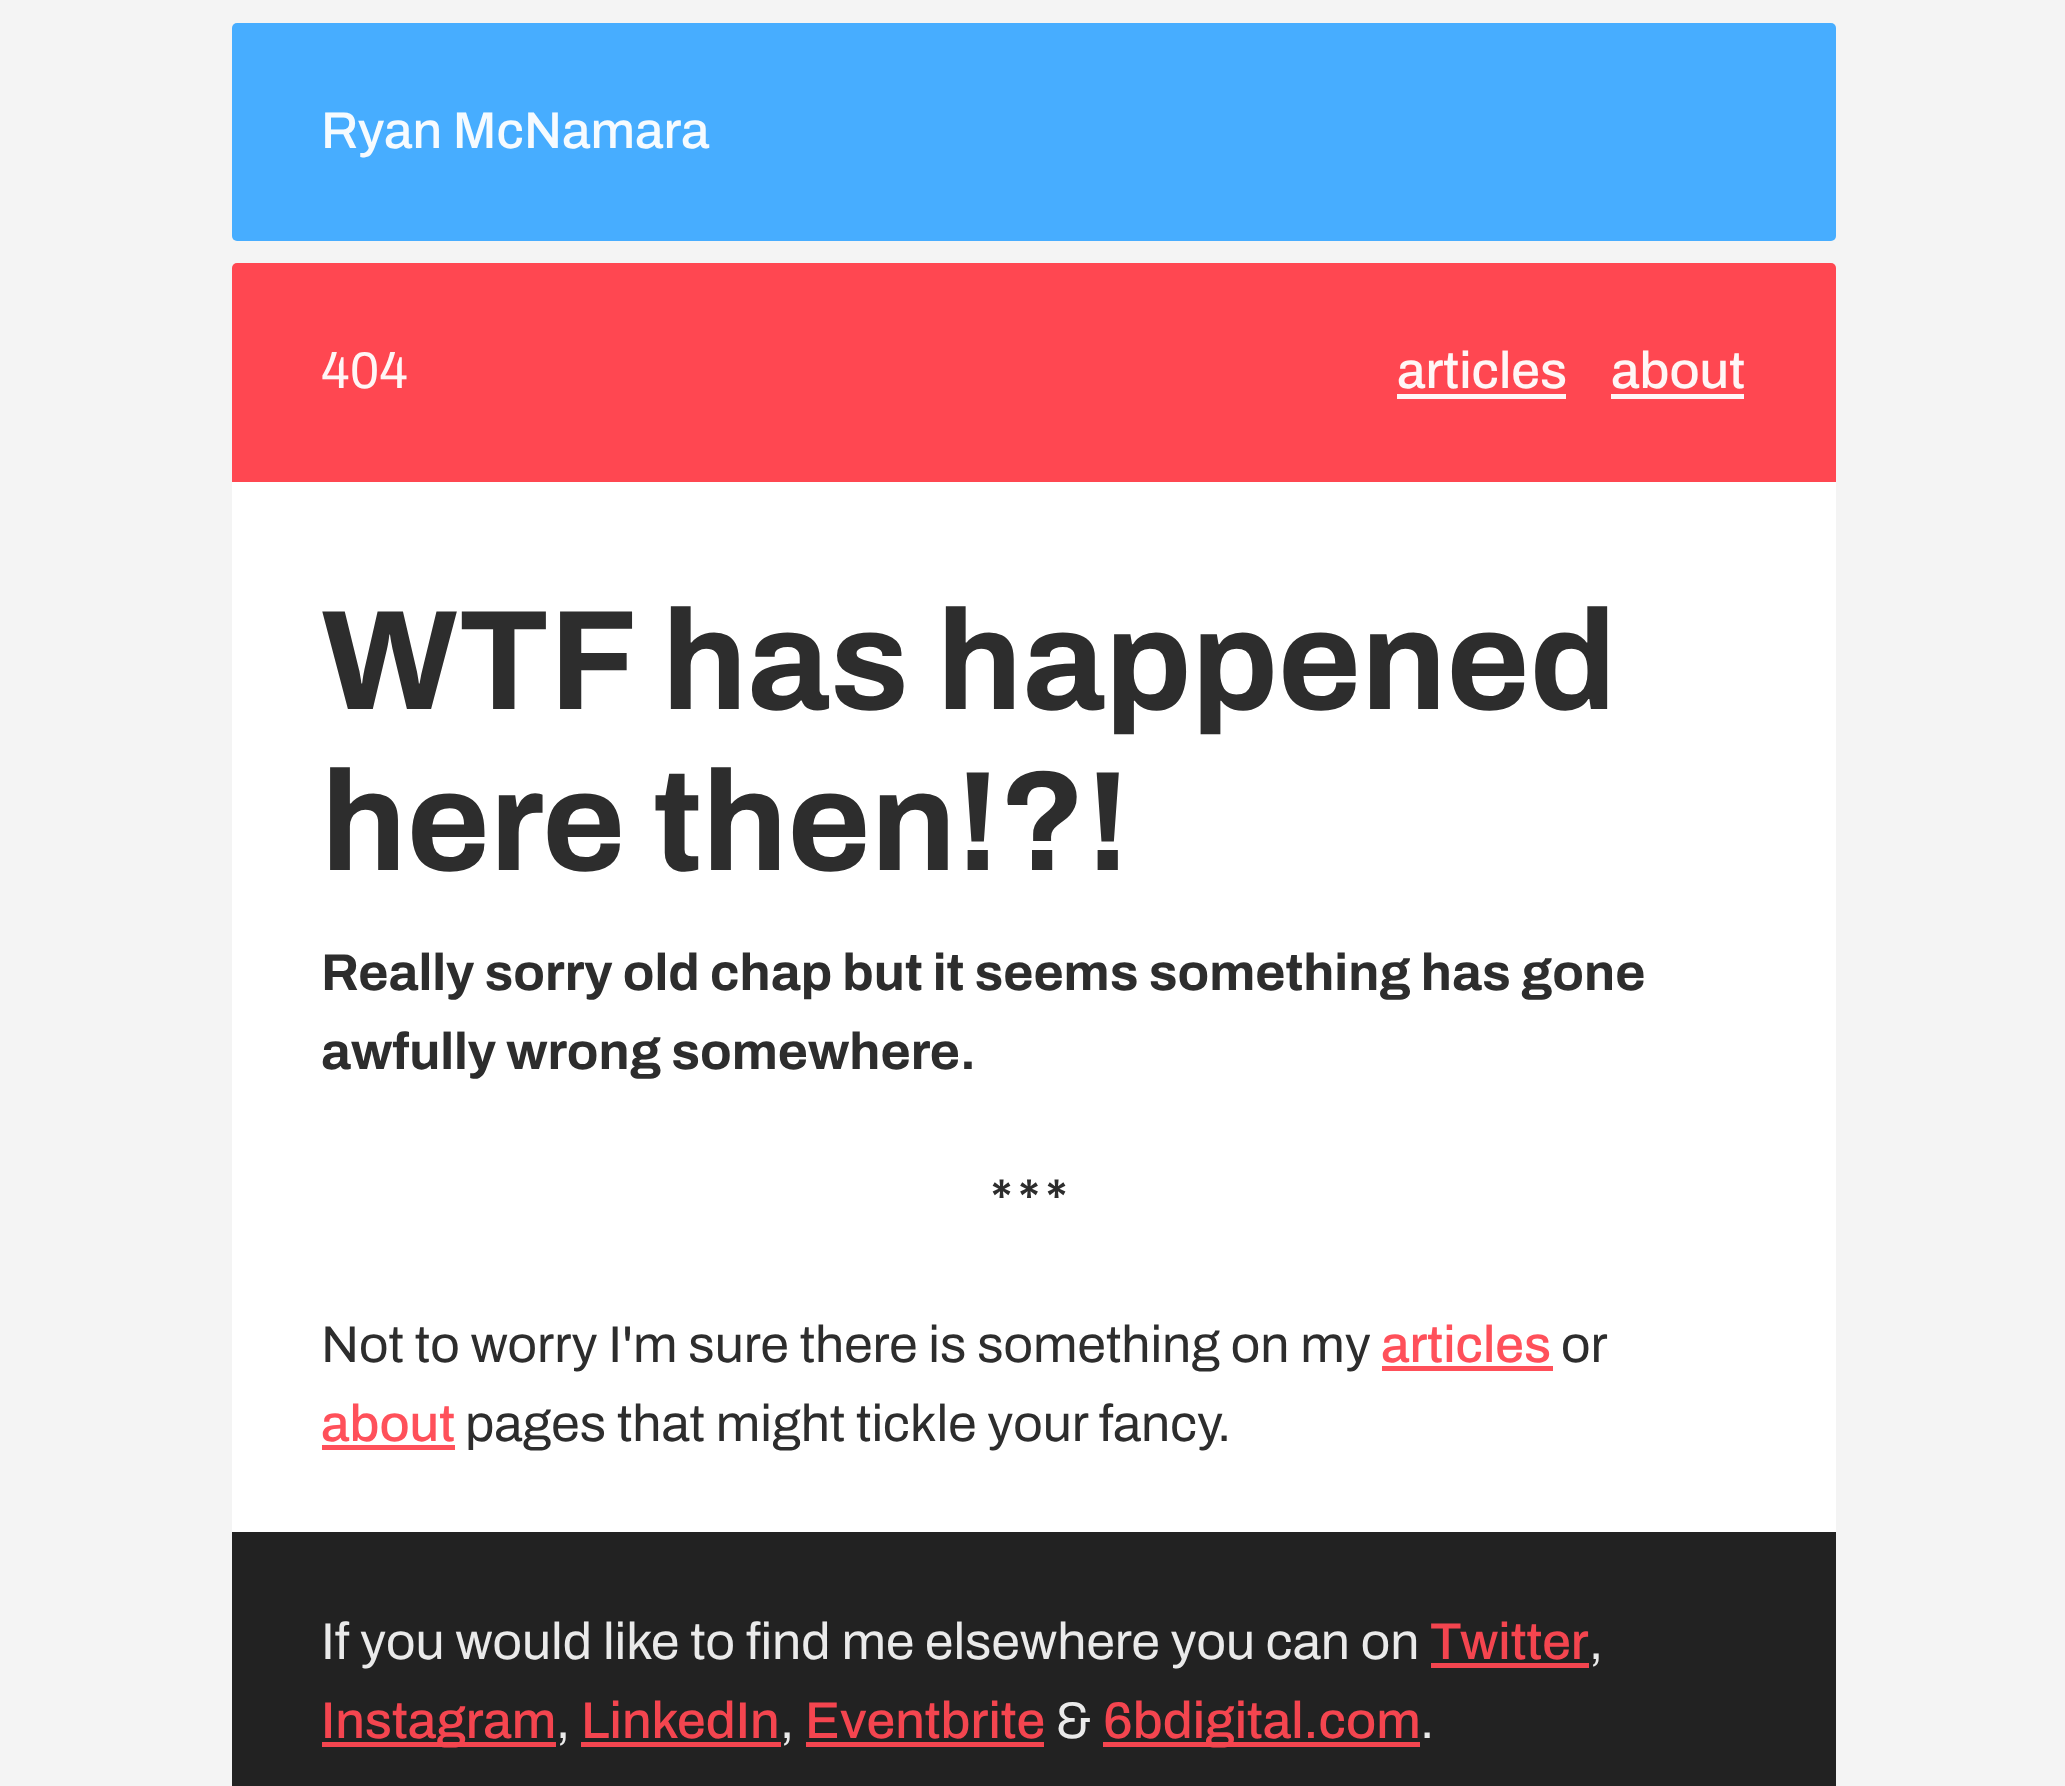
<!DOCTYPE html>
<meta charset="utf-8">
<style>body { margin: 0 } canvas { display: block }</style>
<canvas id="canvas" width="2065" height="1786"></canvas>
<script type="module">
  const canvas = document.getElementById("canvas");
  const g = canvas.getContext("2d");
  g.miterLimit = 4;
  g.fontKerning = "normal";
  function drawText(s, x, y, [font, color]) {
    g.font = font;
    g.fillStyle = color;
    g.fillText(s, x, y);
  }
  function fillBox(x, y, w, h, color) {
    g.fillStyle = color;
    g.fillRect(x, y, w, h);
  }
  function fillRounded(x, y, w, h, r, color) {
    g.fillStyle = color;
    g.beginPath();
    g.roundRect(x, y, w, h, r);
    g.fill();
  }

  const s1 = ["500 51.75px Archivo", "#F6FBFF"];
  const s2 = ["51.75px Archivo", "#FFF6F6"];
  const s3 = ["500 51.75px Archivo", "#FFF6F6"];
  const s4 = ["bold 142.25px Archivo", "#2D2D2D"];
  const s5 = ["bold 51.75px Archivo", "#2D2D2D"];
  const s6 = ["51.75px Archivo", "#2D2D2D"];
  const s7 = ["500 51.75px Archivo", "#FF505A"];
  const s8 = ["51.75px Archivo", "#EAEAEA"];
  const s9 = ["500 51.75px Archivo", "#F4454F"];

  fillBox(0, 0, 2065, 1786, "#F4F4F4");
  fillRounded(232, 23, 1604, 218, 5, "#47ADFF");
  drawText("Ryan McNamara", 321, 148, s1);
  g.fillStyle = "#FF4751";
  g.beginPath();
  g.roundRect(232, 263, 1604, 219, [5, 5, 0, 0]);
  g.fill();
  drawText("404", 321, 388, s2);
  drawText("articles", 1397, 388, s3);
  fillBox(1397, 394, 169, 5, "#FFF6F6");
  drawText("about", 1611, 388, s3);
  fillBox(1611, 394, 133, 5, "#FFF6F6");
  fillBox(232, 482, 1604, 1050, "#FFFFFF");
  drawText("WTF has happened", 321, 709, s4);
  drawText("here then!?!", 321, 870, s4);
  drawText("Really sorry old chap but it seems something has gone", 321, 990, s5);
  drawText("awfully wrong somewhere.", 321, 1069, s5);
  g.letterSpacing = "6.5px";
  drawText("***", 991, 1215, s5);
  g.letterSpacing = "0px";
  drawText("Not to worry I'm sure there is something on my", 321, 1362, s6);
  drawText("articles", 1381, 1362, s7);
  fillBox(1382, 1366, 171, 5, "#FF505A");
  drawText("or", 1561, 1362, s6);
  drawText("about", 321, 1441, s7);
  fillBox(322, 1445, 133, 5, "#FF505A");
  drawText("pages that might tickle your fancy.", 465, 1441, s6);
  fillBox(232, 1532, 1604, 254, "#222222");
  drawText("If you would like to find me elsewhere you can on", 321, 1659, s8);
  drawText("Twitter", 1430, 1659, s9);
  fillBox(1431, 1663, 158, 5, "#F4454F");
  drawText(",", 1589, 1659, s8);
  fillBox(322, 1742, 234, 5, "#F4454F");
  drawText("Instagram", 321, 1738, s9);
  drawText(",", 556, 1738, s8);
  drawText("LinkedIn", 581, 1738, s9);
  fillBox(581, 1742, 200, 5, "#F4454F");
  drawText(",", 780, 1738, s8);
  drawText("Eventbrite", 805, 1738, s9);
  fillBox(806, 1742, 238, 5, "#F4454F");
  drawText("&", 1056, 1738, s8);
  fillBox(1103, 1742, 317, 5, "#F4454F");
  drawText("6bdigital.com", 1103, 1738, s9);
  drawText(".", 1420, 1738, s8);
</script>
